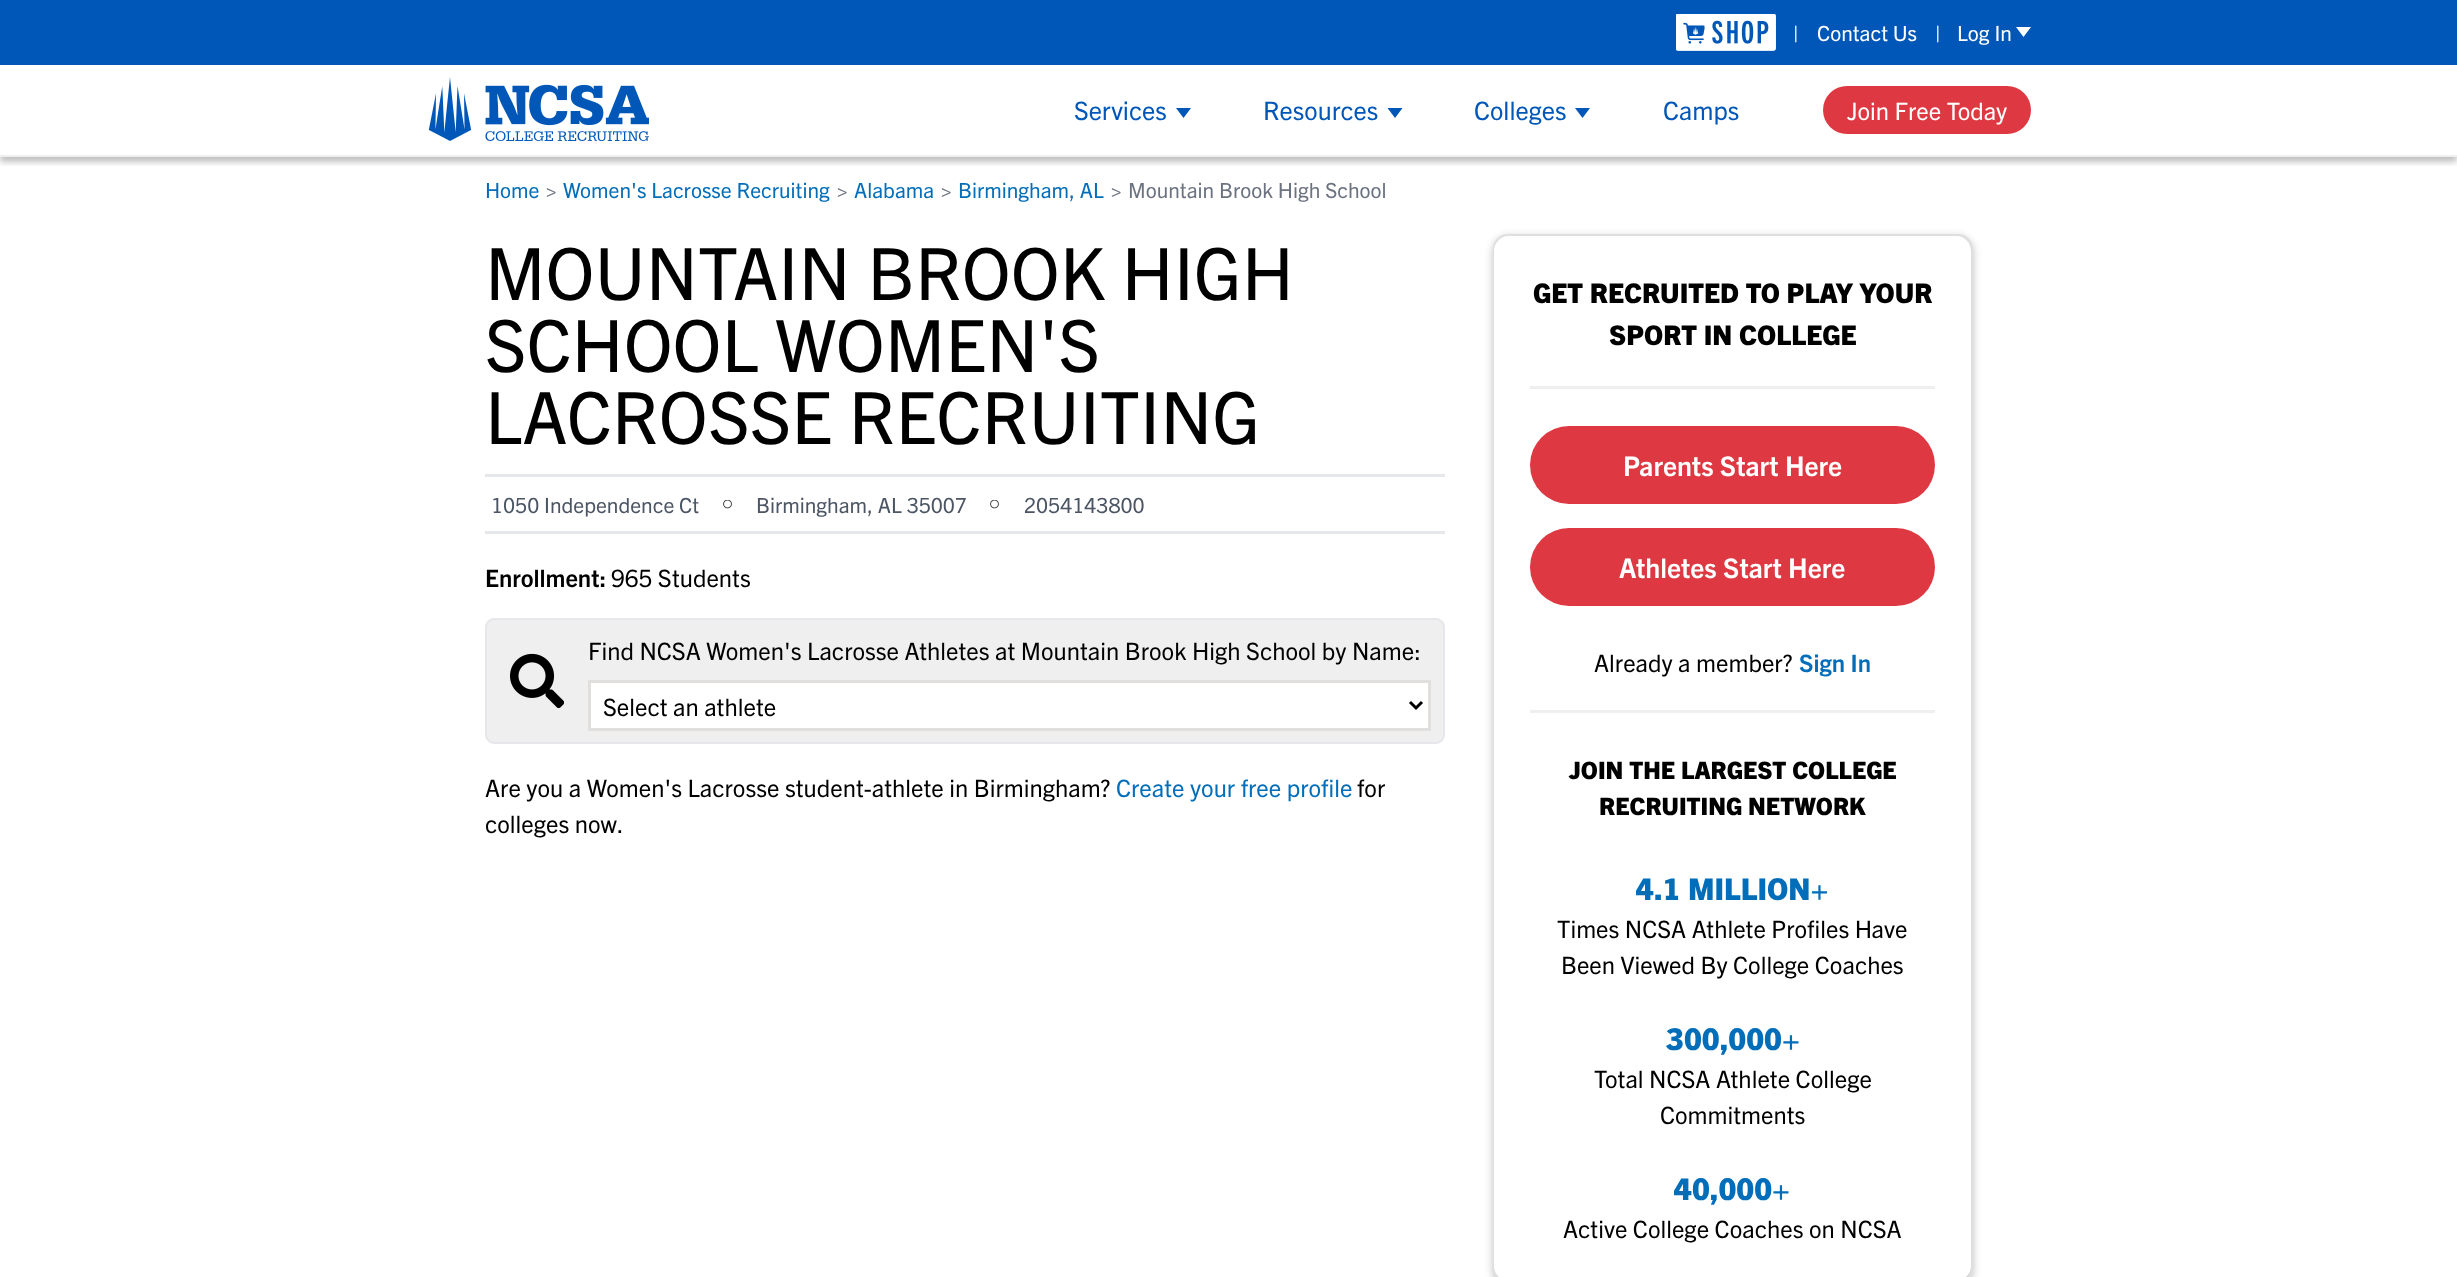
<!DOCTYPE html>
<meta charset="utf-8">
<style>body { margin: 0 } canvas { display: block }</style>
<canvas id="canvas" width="2457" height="1277"></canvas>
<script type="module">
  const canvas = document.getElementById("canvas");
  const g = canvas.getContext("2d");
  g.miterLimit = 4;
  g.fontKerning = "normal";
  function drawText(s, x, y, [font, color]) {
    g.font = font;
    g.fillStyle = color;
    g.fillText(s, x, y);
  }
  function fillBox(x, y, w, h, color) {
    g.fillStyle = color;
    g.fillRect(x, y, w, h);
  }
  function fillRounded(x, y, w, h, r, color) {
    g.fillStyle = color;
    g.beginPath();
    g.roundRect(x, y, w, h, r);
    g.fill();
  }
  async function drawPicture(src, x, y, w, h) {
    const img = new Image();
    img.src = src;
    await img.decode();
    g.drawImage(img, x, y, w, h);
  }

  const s1 = ["21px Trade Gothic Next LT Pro", "#FFFFFF"];
  const s2 = ["25.5px Trade Gothic Next LT Pro", "#0057B8"];
  const s3 = ["24px Trade Gothic Next LT Pro", "#FFFFFF"];
  const s4 = ["21px Trade Gothic Next LT Pro", "#026EBA"];
  const s5 = ["21px Trade Gothic Next LT Pro", "#6B7280"];
  const s6 = ["72px Trade Gothic Next LT Pro", "#000000"];
  const s7 = ["21px Trade Gothic Next LT Pro", "#4B5563"];
  const s8 = ["bold 24px Trade Gothic Next LT Pro", "#000000"];
  const s9 = ["24px Trade Gothic Next LT Pro", "#000000"];
  const s10 = ["24px Trade Gothic Next LT Pro", "#026EBA"];
  const s11 = ["800 27px Trade Gothic Next LT Pro", "#000000"];
  const s12 = ["bold 27px Trade Gothic Next LT Pro", "#FFFFFF"];
  const s13 = ["bold 24px Trade Gothic Next LT Pro", "#026EBA"];
  const s14 = ["800 24px Trade Gothic Next LT Pro", "#000000"];
  const s15 = ["800 30px Trade Gothic Next LT Pro", "#026EBA"];

  fillBox(0, 0, 2457, 1277, "#FFFFFF");
  g.save();
  g.beginPath();
  g.rect(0, 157, 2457, 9);
  g.clip();
  g.fillStyle = "rgba(0, 0, 0, 0.25)";
  g.filter = "blur(3px)";
  g.beginPath();
  g.rect(0, 6, 2457, 156);
  g.fill();
  g.filter = "none";
  g.restore();
  fillBox(0, 155, 2457, 2, "#EFEFEF");
  fillBox(0, 0, 2457, 65, "#0057B8");
  await drawPicture("pic1.png", 1676, 14, 100, 37);
  drawText("|", 1793, 41, s1);
  drawText("Contact Us", 1817, 41, s1);
  drawText("|", 1935, 41, s1);
  drawText("Log In", 1957, 41, s1);
  g.beginPath();
  g.moveTo(2023.5, 37);
  g.lineTo(2016, 27);
  g.lineTo(2031, 27);
  g.closePath();
  g.fill();
  await drawPicture("pic2.png", 428, 77, 221, 65);
  drawText("Services", 1074, 120, s2);
  g.beginPath();
  g.moveTo(1183.5, 118);
  g.lineTo(1176, 108);
  g.lineTo(1191, 108);
  g.closePath();
  g.fill();
  drawText("Resources", 1263, 120, s2);
  g.beginPath();
  g.moveTo(1395, 118);
  g.lineTo(1387.5, 108);
  g.lineTo(1402.5, 108);
  g.closePath();
  g.fill();
  drawText("Colleges", 1474, 120, s2);
  g.beginPath();
  g.moveTo(1582.5, 118);
  g.lineTo(1575, 108);
  g.lineTo(1590, 108);
  g.closePath();
  g.fill();
  drawText("Camps", 1663, 120, s2);
  fillRounded(1823, 86, 208, 48, 24, "#DE3942");
  drawText("Join Free Today", 1847, 120, s3);
  drawText("Home", 485, 198, s4);
  drawText(">", 545, 198, s5);
  drawText("Women's Lacrosse Recruiting", 563, 198, s4);
  drawText(">", 836, 198, s5);
  drawText("Alabama", 854, 198, s4);
  drawText(">", 940, 198, s5);
  drawText("Birmingham, AL", 958, 198, s4);
  drawText(">", 1110, 198, s5);
  drawText("Mountain Brook High School", 1128, 198, s5);
  drawText("MOUNTAIN BROOK HIGH", 485, 300, s6);
  drawText("SCHOOL WOMEN'S", 485, 372, s6);
  drawText("LACROSSE RECRUITING", 485, 444, s6);
  fillBox(485, 474, 960, 3, "#E5E7EB");
  fillBox(485, 531, 960, 3, "#E5E7EB");
  drawText("1050 Independence Ct", 491, 513, s7);
  await drawPicture("pic3.png", 723, 500, 9, 9);
  drawText("Birmingham, AL 35007", 756, 513, s7);
  await drawPicture("pic3.png", 990, 500, 9, 9);
  drawText("2054143800", 1024, 513, s7);
  drawText("Enrollment:", 485, 587, s8);
  drawText("965 Students", 611, 587, s9);
  g.fillStyle = "#EFEFEF";
  g.beginPath();
  g.roundRect(486, 619, 958, 124, 8);
  g.fill();
  g.strokeStyle = "#E5E7EB";
  g.lineWidth = 2;
  g.stroke();
  await drawPicture("pic4.png", 510, 653, 54, 56);
  drawText("Find NCSA Women's Lacrosse Athletes at Mountain Brook High School by Name:", 588, 660, s9);
  g.fillStyle = "#FFFFFF";
  g.beginPath();
  g.rect(589.5, 681.5, 840, 48);
  g.fill();
  g.strokeStyle = "#E1DFDE";
  g.lineWidth = 3;
  g.stroke();
  g.beginPath();
  g.moveTo(1410, 702);
  g.lineTo(1416, 708);
  g.lineTo(1422, 702);
  g.strokeStyle = "#000000";
  g.stroke();
  drawText("Select an athlete", 603, 716, s9);
  drawText("Are you a Women's Lacrosse student-athlete in Birmingham?", 485, 797, s9);
  drawText("Create your free profile", 1116, 797, s10);
  drawText("for", 1357, 797, s9);
  drawText("colleges now.", 485, 833, s9);
  g.fillStyle = "rgba(0, 0, 0, 0.25)";
  g.filter = "blur(4.5px)";
  g.beginPath();
  g.roundRect(1493, 237, 480, 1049, 15);
  g.fill();
  g.filter = "none";
  g.beginPath();
  g.roundRect(1494, 235, 478, 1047, 14);
  g.strokeStyle = "#E1DFDE";
  g.lineWidth = 2;
  g.stroke();
  fillRounded(1494, 236, 477, 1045, 15, "#FFFFFF");
  drawText("GET RECRUITED TO PLAY YOUR", 1533, 303, s11);
  drawText("SPORT IN COLLEGE", 1609, 345, s11);
  fillBox(1530, 386, 405, 3, "#EFEFEF");
  fillRounded(1530, 426, 405, 78, 39, "#DE3942");
  drawText("Parents Start Here", 1623, 476, s12);
  fillRounded(1530, 528, 405, 78, 39, "#DE3942");
  drawText("Athletes Start Here", 1619, 578, s12);
  drawText("Already a member?", 1594, 672, s9);
  drawText("Sign In", 1799, 672, s13);
  fillBox(1530, 710, 405, 3, "#EFEFEF");
  drawText("JOIN THE LARGEST COLLEGE", 1569, 779, s14);
  drawText("RECRUITING NETWORK", 1599, 815, s14);
  drawText("4.1 MILLION+", 1636, 900, s15);
  drawText("Times NCSA Athlete Profiles Have", 1557, 938, s9);
  drawText("Been Viewed By College Coaches", 1561, 974, s9);
  drawText("300,000+", 1666, 1050, s15);
  drawText("Total NCSA Athlete College", 1594, 1088, s9);
  drawText("Commitments", 1660, 1124, s9);
  drawText("40,000+", 1674, 1200, s15);
  drawText("Active College Coaches on NCSA", 1563, 1238, s9);
</script>
